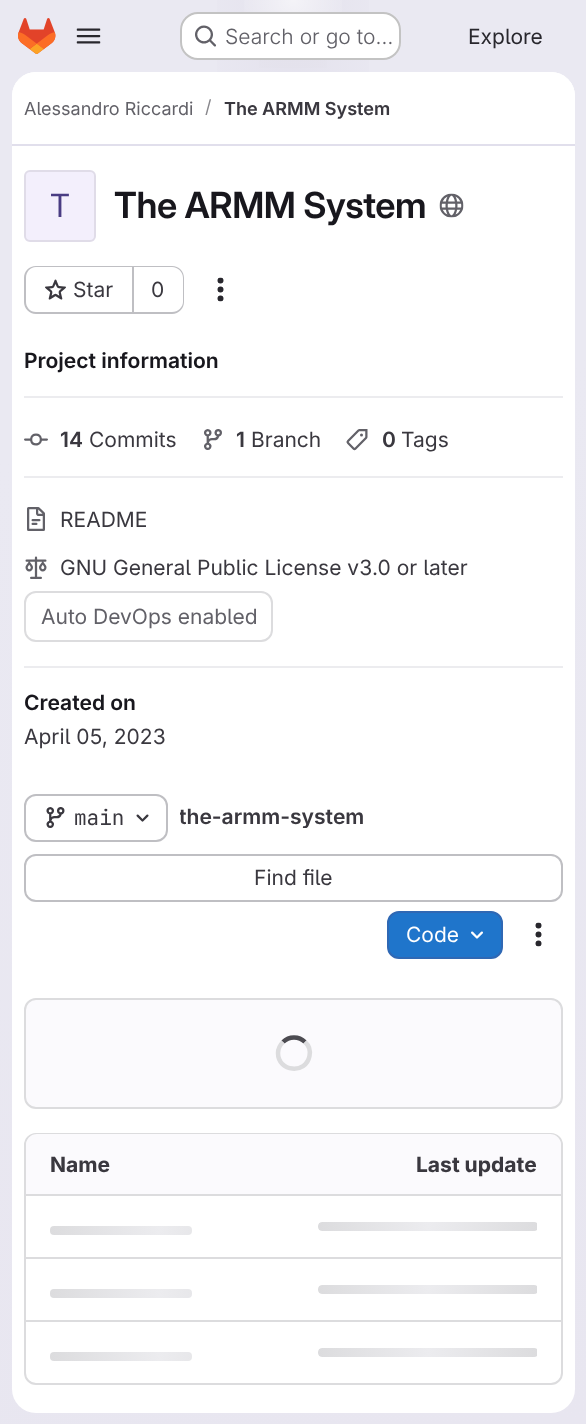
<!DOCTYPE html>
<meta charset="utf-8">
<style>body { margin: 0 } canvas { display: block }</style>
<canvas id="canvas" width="586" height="1424"></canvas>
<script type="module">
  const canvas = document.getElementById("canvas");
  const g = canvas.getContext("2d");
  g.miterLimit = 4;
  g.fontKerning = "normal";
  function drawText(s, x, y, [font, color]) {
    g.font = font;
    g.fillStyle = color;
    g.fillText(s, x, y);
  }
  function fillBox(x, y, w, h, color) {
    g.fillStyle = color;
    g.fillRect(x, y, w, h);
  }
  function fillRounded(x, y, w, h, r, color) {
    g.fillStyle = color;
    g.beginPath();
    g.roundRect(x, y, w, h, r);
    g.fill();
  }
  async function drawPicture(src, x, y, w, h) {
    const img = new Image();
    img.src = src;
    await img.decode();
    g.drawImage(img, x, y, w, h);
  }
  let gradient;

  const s1 = ["300 21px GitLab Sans", "#626168"];
  const s2 = ["21px GitLab Sans", "#28272D"];
  const s3 = ["18px GitLab Sans", "#626168"];
  const s4 = ["18px GitLab Sans", "#89888D"];
  const s5 = ["600 18px 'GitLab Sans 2'", "#3A383F"];
  const s6 = ["32px 'GitLab Sans 2'", "#493C83"];
  const s7 = ["600 36px GitLab Sans", "#18171D"];
  const s8 = ["21px GitLab Sans", "#3A383F"];
  const s9 = ["600 21px 'GitLab Sans 2'", "#18171D"];
  const s10 = ["600 21px 'GitLab Sans 2'", "#3A383F"];
  const s11 = ["21px GitLab Sans", "#626168"];
  const s12 = ["21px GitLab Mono", "#3A383F"];
  const s13 = ["21px GitLab Sans", "#FFFFFF"];
  const s14 = ["bold 21px GitLab Sans", "#3A383F"];

  fillBox(0, 0, 586, 1424, "#FFFFFF");
  gradient = g.createLinearGradient(424, 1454, 163, -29);
  gradient.addColorStop(0, "#E8E6F0");
  gradient.addColorStop(0.7, "#EAE9F2");
  g.fillStyle = gradient;
  g.fillRect(0, 0, 586, 1424);
  gradient = g.createRadialGradient(293, 0, 0, 293, 0, 293);
  gradient.addColorStop(0, "#E4E2ED");
  gradient.addColorStop(0.36, "rgba(228, 226, 237, 0)");
  g.fillStyle = gradient;
  g.beginPath();
  g.rect(217, 0, 152, 72);
  g.save();
  g.clip();
  g.scale(1, 1425 / 293);
  g.fillRect(0, 0, 586, 293);
  g.restore();
  gradient = g.createRadialGradient(293, 0, 0, 293, 0, 293);
  gradient.addColorStop(0, "#E4E2EC");
  gradient.addColorStop(0.26, "rgba(228, 226, 236, 0)");
  g.fillStyle = gradient;
  g.beginPath();
  g.rect(259, 18, 68, 50);
  g.save();
  g.clip();
  g.scale(1, 1425 / 293);
  g.fillRect(0, 0, 586, 293);
  g.restore();
  gradient = g.createRadialGradient(293, 0, 0, 293, 0, 1455);
  gradient.addColorStop(0, "rgba(255, 255, 255, 0.6)");
  gradient.addColorStop(0.04, "rgba(255, 255, 255, 0)");
  g.fillStyle = gradient;
  g.fillRect(244, 0, 98, 12);
  await drawPicture("pic1.png", 18, 18, 38, 36);
  await drawPicture("pic2.png", 76, 28, 25, 16);
  fillRounded(180, 12, 221, 48, 18, "#FFFFFF");
  g.beginPath();
  g.roundRect(181, 13, 219, 46, 17);
  g.strokeStyle = "rgba(5, 5, 6, 0.24)";
  g.lineWidth = 2;
  g.stroke();
  await drawPicture("pic3.png", 195, 25, 21, 22);
  drawText("Search or go to…", 225, 44, s1);
  drawText("Explore", 468, 44, s2);
  fillRounded(12, 72, 563, 1341, 24, "#FFFFFF");
  g.beginPath();
  g.roundRect(12, 72, 563, 74, [24, 24, 0, 0]);
  g.fill();
  fillBox(12, 144, 563, 2, "#E1DFEC");
  drawText("Alessandro Riccardi", 24, 115, s3);
  drawText("/", 205, 113, s4);
  drawText("The ARMM System", 224, 115, s5);
  fillRounded(24, 170, 72, 72, 6, "#F3EFFC");
  g.beginPath();
  g.roundRect(25, 171, 70, 70, 5);
  g.strokeStyle = "rgba(5, 5, 6, 0.08)";
  g.stroke();
  drawText("T", 50, 217, s6);
  g.letterSpacing = "-0.4px";
  drawText("The ARMM System", 114, 218, s7);
  await drawPicture("pic4.png", 439, 193, 25, 25);
  g.fillStyle = "#BFBFC3";
  g.beginPath();
  g.moveTo(36, 266);
  g.lineTo(132, 266);
  g.lineTo(132, 314);
  g.lineTo(36, 314);
  g.bezierCurveTo(29, 314, 24, 308, 24, 302);
  g.lineTo(24, 278);
  g.bezierCurveTo(24, 271, 29, 266, 36, 266);
  g.closePath();
  g.moveTo(36, 267);
  g.lineTo(132, 267);
  g.lineTo(132, 312);
  g.lineTo(36, 312);
  g.bezierCurveTo(30, 312, 26, 307, 26, 302);
  g.lineTo(26, 278);
  g.bezierCurveTo(26, 272, 30, 267, 36, 267);
  g.closePath();
  g.fill("evenodd");
  await drawPicture("pic5.png", 45, 279, 21, 21);
  g.letterSpacing = "0px";
  drawText("Star", 73, 297, s8);
  g.fillStyle = "#BFBFC3";
  g.beginPath();
  g.moveTo(134, 266);
  g.lineTo(172, 266);
  g.bezierCurveTo(179, 266, 184, 271, 184, 278);
  g.lineTo(184, 302);
  g.bezierCurveTo(184, 308, 179, 314, 172, 314);
  g.lineTo(134, 314);
  g.closePath();
  g.moveTo(134, 267);
  g.lineTo(172, 267);
  g.bezierCurveTo(178, 267, 183, 272, 183, 278);
  g.lineTo(183, 302);
  g.bezierCurveTo(183, 307, 178, 312, 172, 312);
  g.lineTo(134, 312);
  g.closePath();
  g.fill("evenodd");
  fillBox(132, 266, 2, 48, "#BFBFC3");
  drawText("0", 151, 297, s8);
  await drawPicture("pic6.png", 217, 277, 7, 25);
  fillBox(24, 396, 539, 2, "#ECECEF");
  drawText("Project information", 24, 368, s9);
  fillBox(24, 476, 539, 2, "#ECECEF");
  await drawPicture("pic7.png", 24, 433, 24, 13);
  drawText("14", 60, 447, s10);
  drawText("Commits", 89, 447, s8);
  await drawPicture("pic8.png", 204, 429, 18, 21);
  drawText("1", 236, 447, s10);
  drawText("Branch", 251, 447, s8);
  await drawPicture("pic9.png", 346, 429, 22, 22);
  drawText("0", 382, 447, s10);
  drawText("Tags", 401, 447, s8);
  fillBox(24, 666, 539, 2, "#ECECEF");
  await drawPicture("pic10.png", 27, 507, 18, 24);
  drawText("README", 60, 527, s8);
  await drawPicture("pic11.png", 25, 556, 22, 23);
  drawText("GNU General Public License v3.0 or later", 60, 575, s8);
  g.beginPath();
  g.roundRect(25, 592, 247, 49, 11);
  g.strokeStyle = "#DCDCDE";
  g.stroke();
  drawText("Auto DevOps enabled", 41, 624, s11);
  drawText("Created on", 24, 710, s9);
  drawText("April 05, 2023", 24, 744, s8);
  g.beginPath();
  g.roundRect(25, 795, 142, 46, 11);
  g.strokeStyle = "#BFBFC3";
  g.stroke();
  await drawPicture("pic12.png", 46, 807, 19, 21);
  drawText("main", 74, 825, s12);
  await drawPicture("pic13.png", 136, 814, 13, 8);
  g.save();
  g.beginPath();
  g.roundRect(180, 803, 185, 25, 6);
  g.clip();
  drawText("the-armm-system", 179, 824, s10);
  g.restore();
  g.beginPath();
  g.roundRect(25, 855, 537, 46, 11);
  g.stroke();
  drawText("Find file", 254, 885, s8);
  g.fillStyle = "#1F75CB";
  g.beginPath();
  g.roundRect(388, 912, 114, 46, 11);
  g.fill();
  g.strokeStyle = "#2F68B4";
  g.stroke();
  drawText("Code", 406, 942, s13);
  await drawPicture("pic14.png", 471, 931, 12, 8);
  await drawPicture("pic6.png", 535, 922, 7, 25);
  g.fillStyle = "#FBFAFD";
  g.beginPath();
  g.roundRect(25, 999, 537, 109, 11);
  g.fill();
  g.strokeStyle = "#DCDCDE";
  g.stroke();
  g.beginPath();
  g.moveTo(283, 1042);
  g.bezierCurveTo(289, 1036, 299, 1036, 305, 1042);
  g.strokeStyle = "#4C4B51";
  g.lineWidth = 4.5;
  g.stroke();
  g.beginPath();
  g.moveTo(305, 1042);
  g.bezierCurveTo(309, 1045.5, 310.5, 1051, 309.5, 1056);
  g.bezierCurveTo(306, 1074.5, 278, 1072, 278, 1053);
  g.bezierCurveTo(278, 1049, 280, 1045, 283, 1042);
  g.strokeStyle = "#DCDCDE";
  g.stroke();
  g.beginPath();
  g.roundRect(25, 1134, 537, 250, 11);
  g.lineWidth = 2;
  g.stroke();
  g.beginPath();
  g.roundRect(26, 1134, 268, 62, [11, 0, 0, 0]);
  g.fill();
  drawText("Name", 50, 1172, s14);
  g.fillStyle = "#FBFAFD";
  g.beginPath();
  g.roundRect(294, 1134, 267, 62, [0, 11, 0, 0]);
  g.fill();
  drawText("Last update", 416, 1172, s14);
  fillBox(26, 1194, 535, 2, "#DCDCDE");
  g.save();
  g.beginPath();
  g.roundRect(318, 1222, 220, 9, 4);
  g.clip();
  gradient = g.createLinearGradient(318, 1222, 538, 1222);
  gradient.addColorStop(0, "#DCDCDE");
  gradient.addColorStop(0.5, "#ECECEF");
  gradient.addColorStop(1, "#DCDCDE");
  g.fillStyle = gradient;
  g.beginPath();
  g.roundRect(318, 1222, 219, 9, [4, 0, 0, 4]);
  g.fill();
  g.restore();
  gradient = g.createLinearGradient(50, 1226, 269, 1226);
  gradient.addColorStop(0, "#DCDCDE");
  gradient.addColorStop(0.5, "#ECECEF");
  gradient.addColorStop(1, "#DCDCDE");
  g.fillStyle = gradient;
  g.beginPath();
  g.roundRect(50, 1226, 142, 9, 4);
  g.fill();
  fillBox(26, 1257, 535, 2, "#DCDCDE");
  g.save();
  g.beginPath();
  g.roundRect(318, 1285, 220, 9, 4);
  g.clip();
  gradient = g.createLinearGradient(318, 1285, 538, 1285);
  gradient.addColorStop(0, "#DCDCDE");
  gradient.addColorStop(0.5, "#ECECEF");
  gradient.addColorStop(1, "#DCDCDE");
  g.fillStyle = gradient;
  g.beginPath();
  g.roundRect(318, 1285, 219, 9, [4, 0, 0, 4]);
  g.fill();
  g.restore();
  gradient = g.createLinearGradient(50, 1289, 269, 1289);
  gradient.addColorStop(0, "#DCDCDE");
  gradient.addColorStop(0.5, "#ECECEF");
  gradient.addColorStop(1, "#DCDCDE");
  g.fillStyle = gradient;
  g.beginPath();
  g.roundRect(50, 1289, 142, 9, 4);
  g.fill();
  fillBox(26, 1320, 535, 2, "#DCDCDE");
  g.save();
  g.beginPath();
  g.roundRect(318, 1348, 220, 9, 4);
  g.clip();
  gradient = g.createLinearGradient(318, 1348, 538, 1348);
  gradient.addColorStop(0, "#DCDCDE");
  gradient.addColorStop(0.5, "#ECECEF");
  gradient.addColorStop(1, "#DCDCDE");
  g.fillStyle = gradient;
  g.beginPath();
  g.roundRect(318, 1348, 219, 9, [4, 0, 0, 4]);
  g.fill();
  g.restore();
  gradient = g.createLinearGradient(50, 1352, 269, 1352);
  gradient.addColorStop(0, "#DCDCDE");
  gradient.addColorStop(0.5, "#ECECEF");
  gradient.addColorStop(1, "#DCDCDE");
  g.fillStyle = gradient;
  g.beginPath();
  g.roundRect(50, 1352, 142, 9, 4);
  g.fill();
</script>
